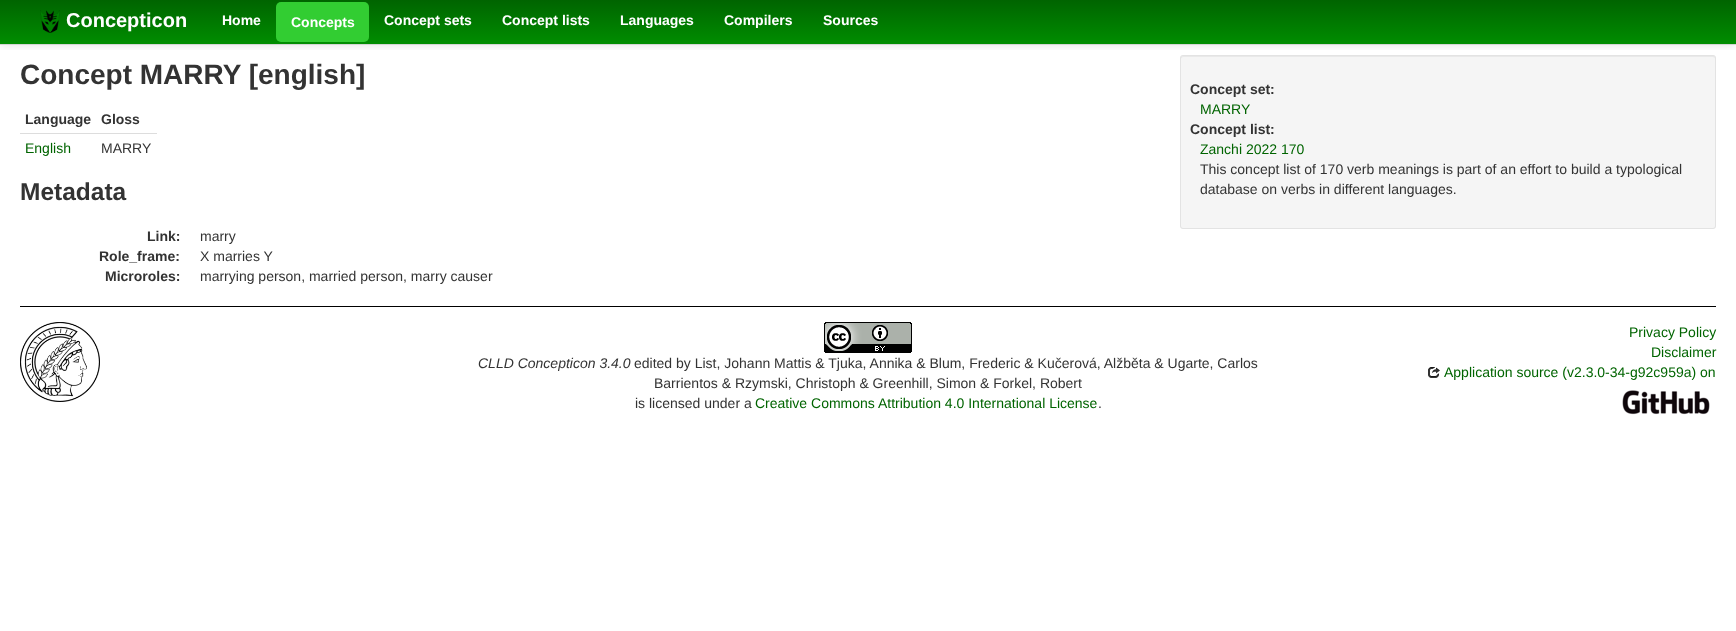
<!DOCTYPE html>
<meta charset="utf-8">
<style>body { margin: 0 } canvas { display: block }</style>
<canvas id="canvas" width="1736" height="631"></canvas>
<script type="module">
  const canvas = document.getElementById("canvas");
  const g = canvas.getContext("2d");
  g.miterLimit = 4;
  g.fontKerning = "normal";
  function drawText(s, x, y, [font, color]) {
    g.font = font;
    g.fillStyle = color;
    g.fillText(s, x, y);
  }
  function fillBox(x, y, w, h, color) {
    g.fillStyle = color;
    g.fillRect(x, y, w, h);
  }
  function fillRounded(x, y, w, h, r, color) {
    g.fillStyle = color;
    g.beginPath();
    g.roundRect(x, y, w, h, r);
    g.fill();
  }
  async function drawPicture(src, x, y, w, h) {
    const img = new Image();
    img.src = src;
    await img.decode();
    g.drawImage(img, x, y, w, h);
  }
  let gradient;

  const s1 = ["bold 20px Liberation Sans", "#FFFFFF"];
  const s2 = ["bold 14px Liberation Sans", "#FFFFFF"];
  const s3 = ["bold 28px Liberation Sans", "#333333"];
  const s4 = ["bold 14px Liberation Sans", "#333333"];
  const s5 = ["14px Liberation Sans", "#006400"];
  const s6 = ["14px Liberation Sans", "#333333"];
  const s7 = ["bold 24.5px Liberation Sans", "#333333"];
  const s8 = ["italic 14px Liberation Sans", "#333333"];

  fillBox(0, 0, 1736, 631, "#FFFFFF");
  gradient = g.createLinearGradient(868, 0, 868, 45);
  gradient.addColorStop(0, "#006400");
  gradient.addColorStop(1, "#008E00");
  g.fillStyle = gradient;
  g.fillRect(0, 0, 1736, 44);
  g.save();
  g.beginPath();
  g.rect(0, 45, 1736, 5);
  g.clip();
  g.fillStyle = "rgba(0, 0, 0, 0.1)";
  g.filter = "blur(5px)";
  g.beginPath();
  g.rect(0, 1, 1736, 45);
  g.fill();
  g.filter = "none";
  g.restore();
  fillBox(0, 44, 1736, 1, "#D4D4D4");
  await drawPicture("pic1.png", 40, 10, 20, 23);
  drawText("Concepticon", 66, 27, s1);
  drawText("Home", 222, 25, s2);
  fillRounded(276, 2, 93, 40, 5, "#32CD32");
  drawText("Concepts", 291, 27, s2);
  drawText("Concept sets", 384, 25, s2);
  drawText("Concept lists", 502, 25, s2);
  drawText("Languages", 620, 25, s2);
  drawText("Compilers", 724, 25, s2);
  drawText("Sources", 823, 25, s2);
  drawText("Concept MARRY [english]", 20, 84, s3);
  drawText("Language", 25, 124, s4);
  drawText("Gloss", 101, 124, s4);
  drawText("English", 25, 153, s5);
  fillBox(20, 133, 137, 1, "#DDDDDD");
  drawText("MARRY", 101, 153, s6);
  drawText("Metadata", 20, 200, s7);
  drawText("Link:", 147, 241, s4);
  drawText("marry", 200, 241, s6);
  drawText("Role_frame:", 99, 261, s4);
  drawText("X marries Y", 200, 261, s6);
  drawText("Microroles:", 105, 281, s4);
  drawText("marrying person, married person, marry causer", 200, 281, s6);
  fillRounded(1180, 55, 536, 174, 3, "#F5F5F5");
  g.fillStyle = "#E9E9E9";
  g.beginPath();
  g.moveTo(1183, 57);
  g.lineTo(1713, 57);
  g.bezierCurveTo(1714, 57, 1715, 58, 1715, 59);
  g.bezierCurveTo(1715, 58, 1715, 56, 1713, 56);
  g.lineTo(1183, 56);
  g.lineTo(1181, 57);
  g.lineTo(1181, 59);
  g.bezierCurveTo(1181, 58, 1182, 57, 1183, 57);
  g.closePath();
  g.fill();
  g.beginPath();
  g.roundRect(1180.5, 55.5, 535, 173, 2.5);
  g.strokeStyle = "#E3E3E3";
  g.stroke();
  drawText("Concept set:", 1190, 94, s4);
  drawText("MARRY", 1200, 114, s5);
  drawText("Concept list:", 1190, 134, s4);
  drawText("Zanchi 2022 170", 1200, 154, s5);
  drawText("This concept list of 170 verb meanings is part of an effort to build a typological", 1200, 174, s6);
  drawText("database on verbs in different languages.", 1200, 194, s6);
  fillBox(20, 306, 1696, 1, "#000000");
  await drawPicture("pic2.png", 20, 322, 80, 80);
  await drawPicture("pic3.png", 824, 322, 88, 31);
  drawText("CLLD Concepticon 3.4.0", 478, 368, s8);
  drawText("edited by List, Johann Mattis & Tjuka, Annika & Blum, Frederic & Kučerová, Alžběta & Ugarte, Carlos", 634, 368, s6);
  drawText("Barrientos & Rzymski, Christoph & Greenhill, Simon & Forkel, Robert", 654, 388, s6);
  drawText("is licensed under a", 635, 408, s6);
  drawText("Creative Commons Attribution 4.0 International License", 755, 408, s5);
  drawText(".", 1098, 408, s6);
  drawText("Privacy Policy", 1629, 337, s5);
  drawText("Disclaimer", 1651, 357, s5);
  await drawPicture("pic4.png", 1428, 367, 12, 11);
  drawText("Application source (v2.3.0-34-g92c959a) on", 1444, 377, s5);
  await drawPicture("pic5.png", 1622, 390, 88, 25);
</script>
